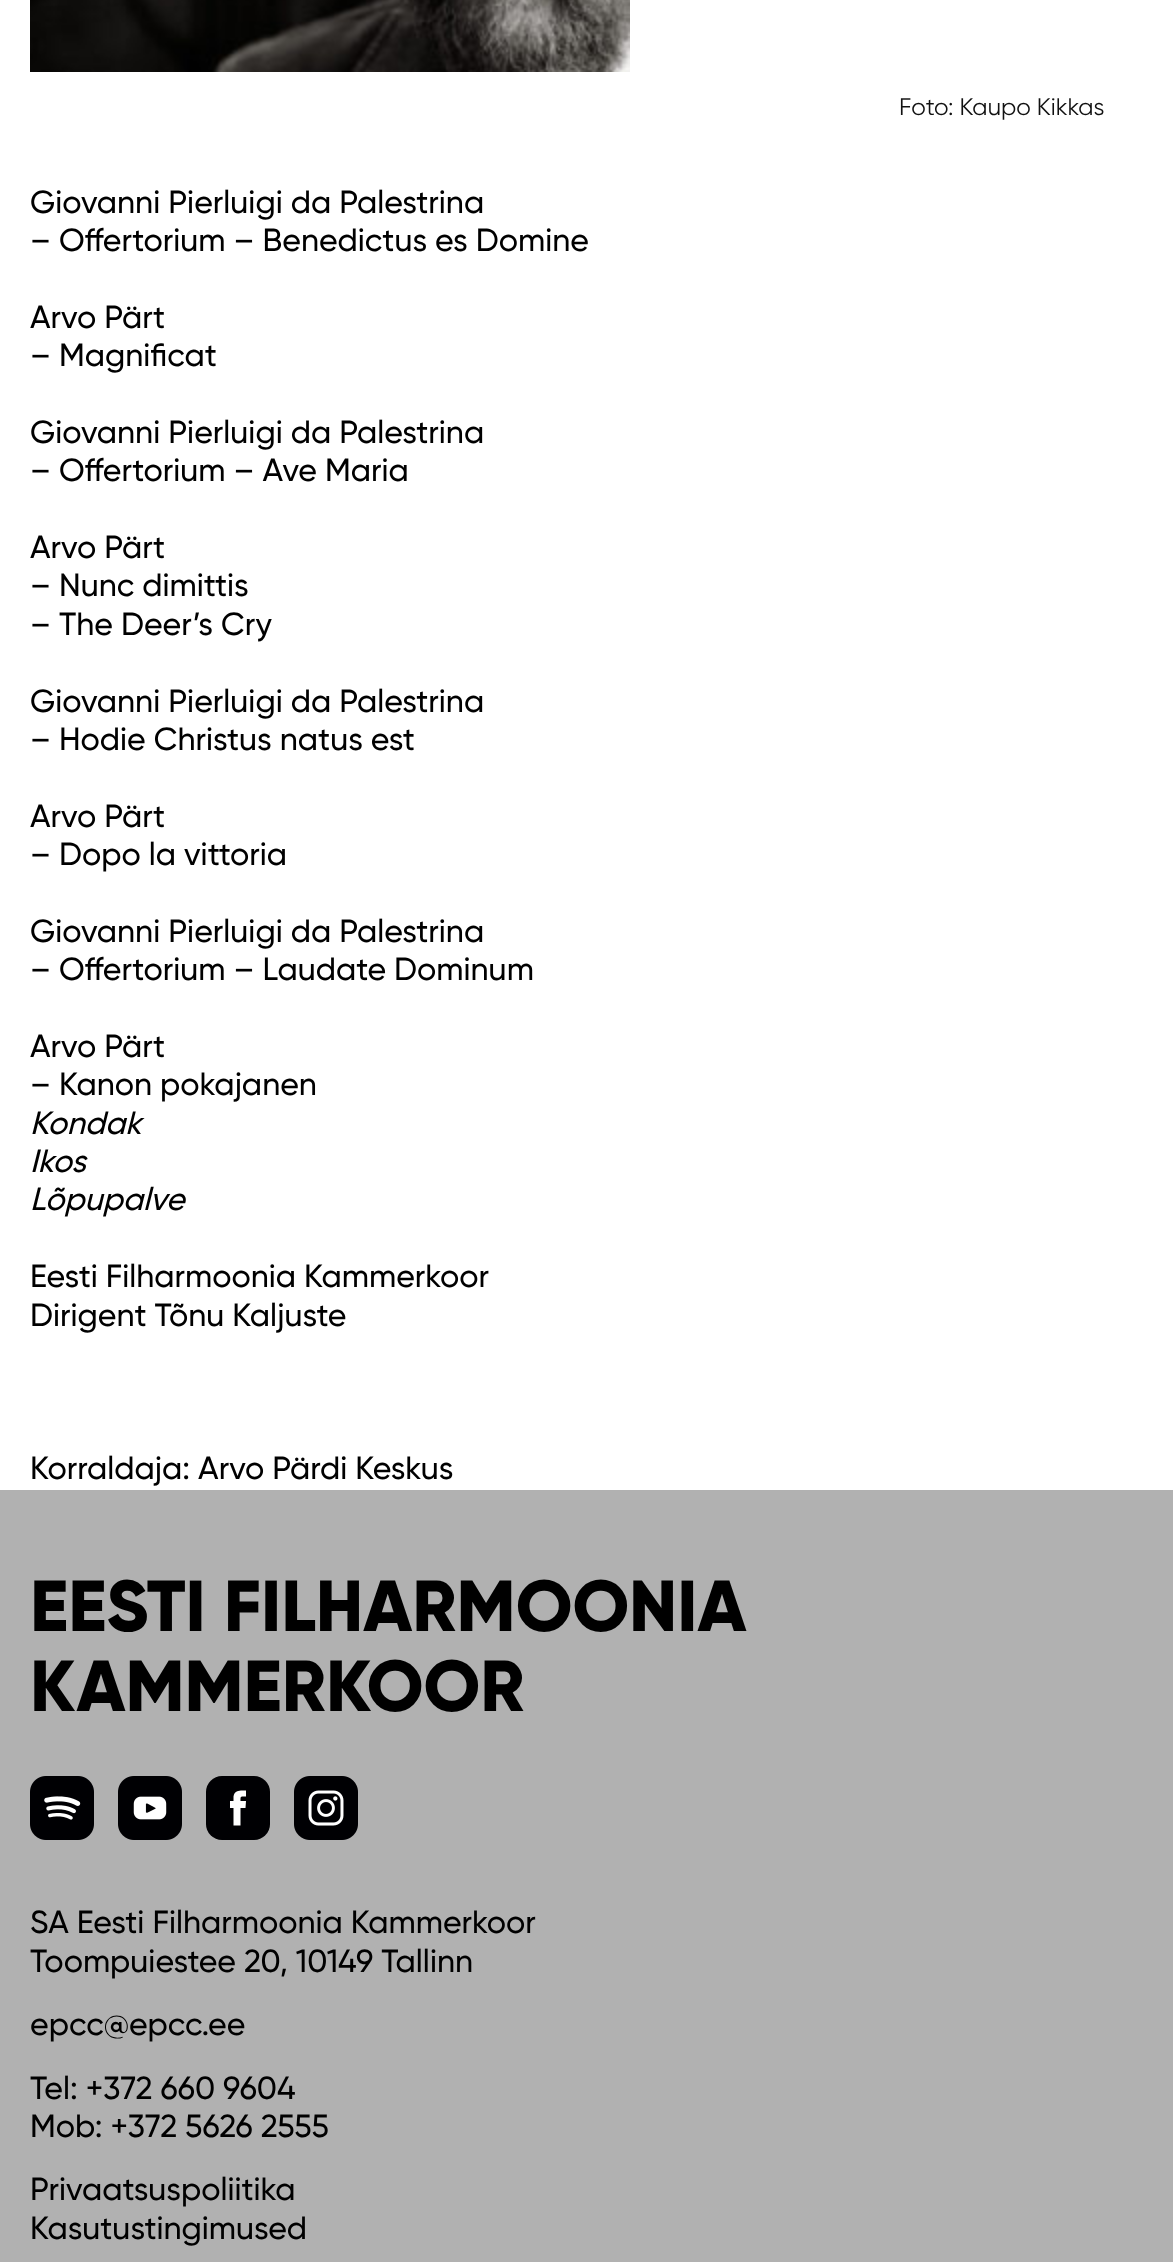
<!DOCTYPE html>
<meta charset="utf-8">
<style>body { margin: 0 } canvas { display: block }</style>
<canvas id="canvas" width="1173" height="2262"></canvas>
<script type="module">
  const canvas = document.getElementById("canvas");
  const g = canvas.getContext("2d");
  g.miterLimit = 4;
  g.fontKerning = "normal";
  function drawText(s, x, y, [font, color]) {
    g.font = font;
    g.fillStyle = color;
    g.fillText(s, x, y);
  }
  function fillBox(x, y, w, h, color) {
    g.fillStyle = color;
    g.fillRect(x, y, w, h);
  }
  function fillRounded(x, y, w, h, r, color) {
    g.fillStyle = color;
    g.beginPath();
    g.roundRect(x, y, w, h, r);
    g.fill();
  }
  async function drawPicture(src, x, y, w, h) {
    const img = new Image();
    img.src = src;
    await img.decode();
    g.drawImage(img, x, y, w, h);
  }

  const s1 = ["24px gilroy", "#111111"];
  const s2 = ["500 32px Gilroy", "#000000"];
  const s3 = ["italic 500 32px Gilroy", "#000000"];
  const s4 = ["800 72px Gilroy", "#000000"];

  fillBox(0, 0, 1173, 2262, "#FFFFFF");
  await drawPicture("pic1.png", 30, 0, 600, 72);
  drawText("Foto: Kaupo Kikkas", 899, 115, s1);
  drawText("Giovanni Pierluigi da Palestrina", 30, 213, s2);
  drawText("– Offertorium – Benedictus es Domine", 30, 251, s2);
  drawText("Arvo Pärt", 30, 328, s2);
  drawText("– Magnificat", 30, 366, s2);
  drawText("Giovanni Pierluigi da Palestrina", 30, 443, s2);
  drawText("– Offertorium – Ave Maria", 30, 481, s2);
  drawText("Arvo Pärt", 30, 558, s2);
  drawText("– Nunc dimittis", 30, 596, s2);
  drawText("– The Deer’s Cry", 30, 635, s2);
  drawText("Giovanni Pierluigi da Palestrina", 30, 712, s2);
  drawText("– Hodie Christus natus est", 30, 750, s2);
  drawText("Arvo Pärt", 30, 827, s2);
  drawText("– Dopo la vittoria", 30, 865, s2);
  drawText("Giovanni Pierluigi da Palestrina", 30, 942, s2);
  drawText("– Offertorium – Laudate Dominum", 30, 980, s2);
  drawText("Arvo Pärt", 30, 1057, s2);
  drawText("– Kanon pokajanen", 30, 1095, s2);
  drawText("Kondak", 30, 1134, s3);
  drawText("Ikos", 30, 1172, s3);
  drawText("Lõpupalve", 30, 1210, s3);
  drawText("Eesti Filharmoonia Kammerkoor", 30, 1287, s2);
  drawText("Dirigent Tõnu Kaljuste", 30, 1326, s2);
  drawText("Korraldaja: Arvo Pärdi Keskus", 30, 1479, s2);
  fillBox(0, 1490, 1173, 772, "#B1B1B1");
  drawText("EESTI FILHARMOONIA", 30, 1631, s4);
  drawText("KAMMERKOOR", 30, 1711, s4);
  await drawPicture("pic2.png", 30, 1776, 64, 64);
  await drawPicture("pic3.png", 118, 1776, 64, 64);
  fillRounded(206, 1776, 64, 64, 16, "#000003");
  g.fillStyle = "#FFFFFF";
  g.beginPath();
  g.moveTo(240.5, 1801);
  g.bezierCurveTo(240.5, 1795.5, 240.5, 1796.5, 246, 1796.5);
  g.lineTo(246, 1790.5);
  g.bezierCurveTo(241, 1790.5, 234.5, 1789.5, 233.5, 1796.5);
  g.lineTo(233.5, 1801);
  g.lineTo(230, 1801);
  g.lineTo(230, 1808);
  g.lineTo(233.5, 1808);
  g.lineTo(233.5, 1825.5);
  g.lineTo(240.5, 1825.5);
  g.lineTo(240.5, 1808);
  g.lineTo(245.5, 1808);
  g.lineTo(246, 1801);
  g.closePath();
  g.fill("evenodd");
  await drawPicture("pic4.png", 294, 1776, 64, 64);
  drawText("SA Eesti Filharmoonia Kammerkoor", 30, 1933, s2);
  drawText("Toompuiestee 20, 10149 Tallinn", 30, 1972, s2);
  drawText("epcc@epcc.ee", 30, 2035, s2);
  drawText("Tel: +372 660 9604", 30, 2099, s2);
  drawText("Mob: +372 5626 2555", 30, 2137, s2);
  drawText("Privaatsuspoliitika", 30, 2200, s2);
  drawText("Kasutustingimused", 30, 2239, s2);
</script>
